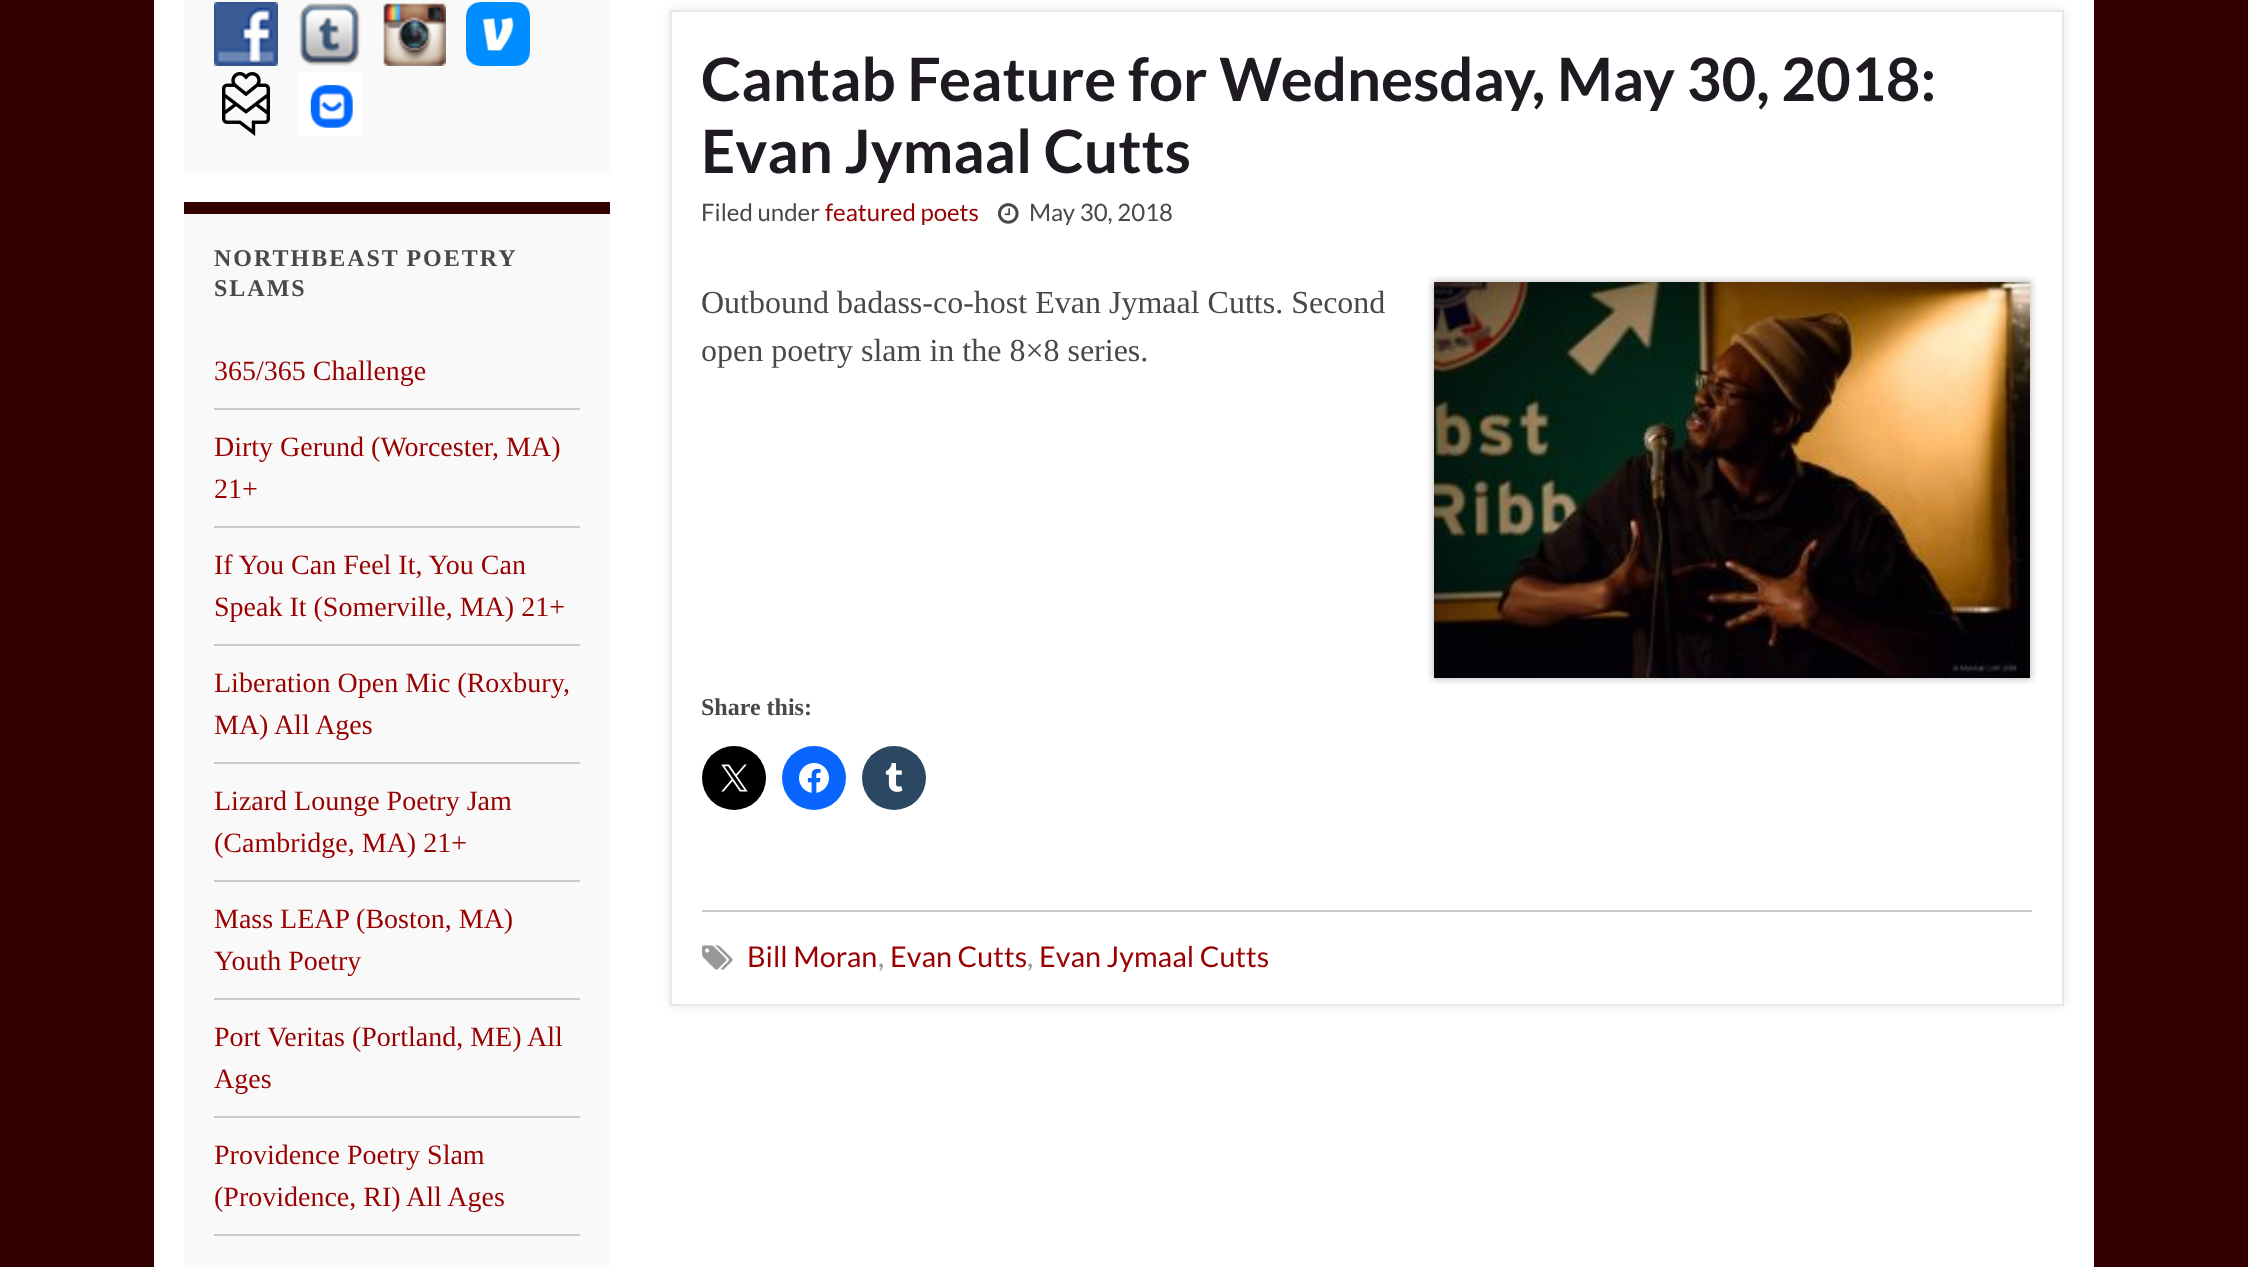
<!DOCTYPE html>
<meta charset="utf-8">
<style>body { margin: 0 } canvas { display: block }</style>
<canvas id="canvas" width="2248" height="1267"></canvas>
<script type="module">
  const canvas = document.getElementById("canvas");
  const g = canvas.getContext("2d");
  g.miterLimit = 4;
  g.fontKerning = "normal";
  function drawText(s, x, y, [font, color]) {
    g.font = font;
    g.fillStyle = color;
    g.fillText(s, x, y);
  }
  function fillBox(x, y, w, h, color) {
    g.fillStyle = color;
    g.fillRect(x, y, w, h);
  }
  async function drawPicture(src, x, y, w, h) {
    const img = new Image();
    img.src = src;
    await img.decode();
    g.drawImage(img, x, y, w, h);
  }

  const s1 = ["bold 24px Liberation Serif", "#4A474B"];
  const s2 = ["28px Liberation Serif", "#990000"];
  const s3 = ["bold 60px Lato", "#1F1A22"];
  const s4 = ["24px Lato", "#4A474B"];
  const s5 = ["24px Lato", "#990000"];
  const s6 = ["32px Liberation Serif", "#4A474B"];
  const s7 = ["28.75px Lato", "#990000"];
  const s8 = ["28.75px Lato", "#989898"];

  fillBox(0, 0, 2248, 1267, "#330000");
  fillBox(154, 0, 1940, 1267, "#FFFFFF");
  fillBox(184, 0, 426, 172, "#F9F9F9");
  await drawPicture("pic1.png", 214, 2, 64, 64);
  await drawPicture("pic2.png", 299, 3, 62, 63);
  await drawPicture("pic3.png", 383, 3, 63, 63);
  await drawPicture("pic4.png", 466, 2, 64, 64);
  await drawPicture("pic5.png", 222, 72, 48, 64);
  await drawPicture("pic6.png", 298, 72, 64, 64);
  fillBox(184, 214, 426, 1053, "#F9F9F9");
  fillBox(184, 202, 426, 12, "#330000");
  g.letterSpacing = "2px";
  g.wordSpacing = "-1px";
  drawText("NORTHBEAST POETRY", 214, 266, s1);
  g.wordSpacing = "0px";
  drawText("SLAMS", 214, 296, s1);
  fillBox(214, 408, 366, 2, "#CACACA");
  g.letterSpacing = "0px";
  drawText("365/365 Challenge", 214, 380, s2);
  fillBox(214, 526, 366, 2, "#CACACA");
  drawText("Dirty Gerund (Worcester, MA)", 214, 456, s2);
  drawText("21+", 214, 498, s2);
  fillBox(214, 644, 366, 2, "#CACACA");
  drawText("If You Can Feel It, You Can", 214, 574, s2);
  drawText("Speak It (Somerville, MA) 21+", 214, 616, s2);
  fillBox(214, 762, 366, 2, "#CACACA");
  drawText("Liberation Open Mic (Roxbury,", 214, 692, s2);
  drawText("MA) All Ages", 214, 734, s2);
  fillBox(214, 880, 366, 2, "#CACACA");
  drawText("Lizard Lounge Poetry Jam", 214, 810, s2);
  drawText("(Cambridge, MA) 21+", 214, 852, s2);
  fillBox(214, 998, 366, 2, "#CACACA");
  drawText("Mass LEAP (Boston, MA)", 214, 928, s2);
  drawText("Youth Poetry", 214, 970, s2);
  fillBox(214, 1116, 366, 2, "#CACACA");
  drawText("Port Veritas (Portland, ME) All", 214, 1046, s2);
  drawText("Ages", 214, 1088, s2);
  fillBox(214, 1234, 366, 2, "#CACACA");
  drawText("Providence Poetry Slam", 214, 1164, s2);
  drawText("(Providence, RI) All Ages", 214, 1206, s2);
  g.save();
  g.beginPath();
  g.moveTo(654, 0);
  g.lineTo(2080, 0);
  g.lineTo(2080, 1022);
  g.lineTo(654, 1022);
  g.closePath();
  g.moveTo(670, 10);
  g.lineTo(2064, 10);
  g.lineTo(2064, 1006);
  g.lineTo(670, 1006);
  g.closePath();
  g.clip("evenodd");
  g.fillStyle = "rgba(0, 0, 0, 0.1)";
  g.filter = "blur(5px)";
  g.beginPath();
  g.rect(670, 10, 1394, 996);
  g.fill();
  g.filter = "none";
  g.restore();
  g.strokeStyle = "#E9E8E3";
  g.lineWidth = 2;
  g.strokeRect(671, 11, 1392, 994);
  drawText("Cantab Feature for Wednesday, May 30, 2018:", 701, 101, s3);
  drawText("Evan Jymaal Cutts", 701, 173, s3);
  drawText("Filed under", 701, 221, s4);
  drawText("featured poets", 825, 221, s5);
  await drawPicture("pic7.png", 998, 203, 21, 21);
  drawText("May 30, 2018", 1029, 221, s4);
  drawText("Outbound badass-co-host Evan Jymaal Cutts. Second", 701, 313, s6);
  drawText("open poetry slam in the 8×8 series.", 701, 361, s6);
  g.fillStyle = "rgba(0, 0, 0, 0.2)";
  g.filter = "blur(3px)";
  g.beginPath();
  g.rect(1432, 280, 600, 400);
  g.fill();
  g.filter = "none";
  await drawPicture("pic8.png", 1434, 282, 596, 396);
  drawText("Share this:", 701, 715, s1);
  g.fillStyle = "#000000";
  g.beginPath();
  g.arc(734, 778, 32, 0, Math.PI * 2);
  g.fill();
  await drawPicture("pic9.png", 721, 764, 27, 28);
  g.fillStyle = "#0866FF";
  g.beginPath();
  g.arc(814, 778, 32, 0, Math.PI * 2);
  g.fill();
  await drawPicture("pic10.png", 799, 763, 30, 30);
  g.fillStyle = "#2C4762";
  g.beginPath();
  g.arc(894, 778, 32, 0, Math.PI * 2);
  g.fill();
  await drawPicture("pic11.png", 885, 763, 18, 29);
  fillBox(702, 910, 1330, 2, "#CACACA");
  await drawPicture("pic12.png", 702, 945, 31, 25);
  drawText("Bill Moran", 747, 967, s7);
  drawText(",", 878, 967, s8);
  drawText("Evan Cutts", 890, 967, s7);
  drawText(",", 1027, 967, s8);
  drawText("Evan Jymaal Cutts", 1039, 967, s7);
</script>
